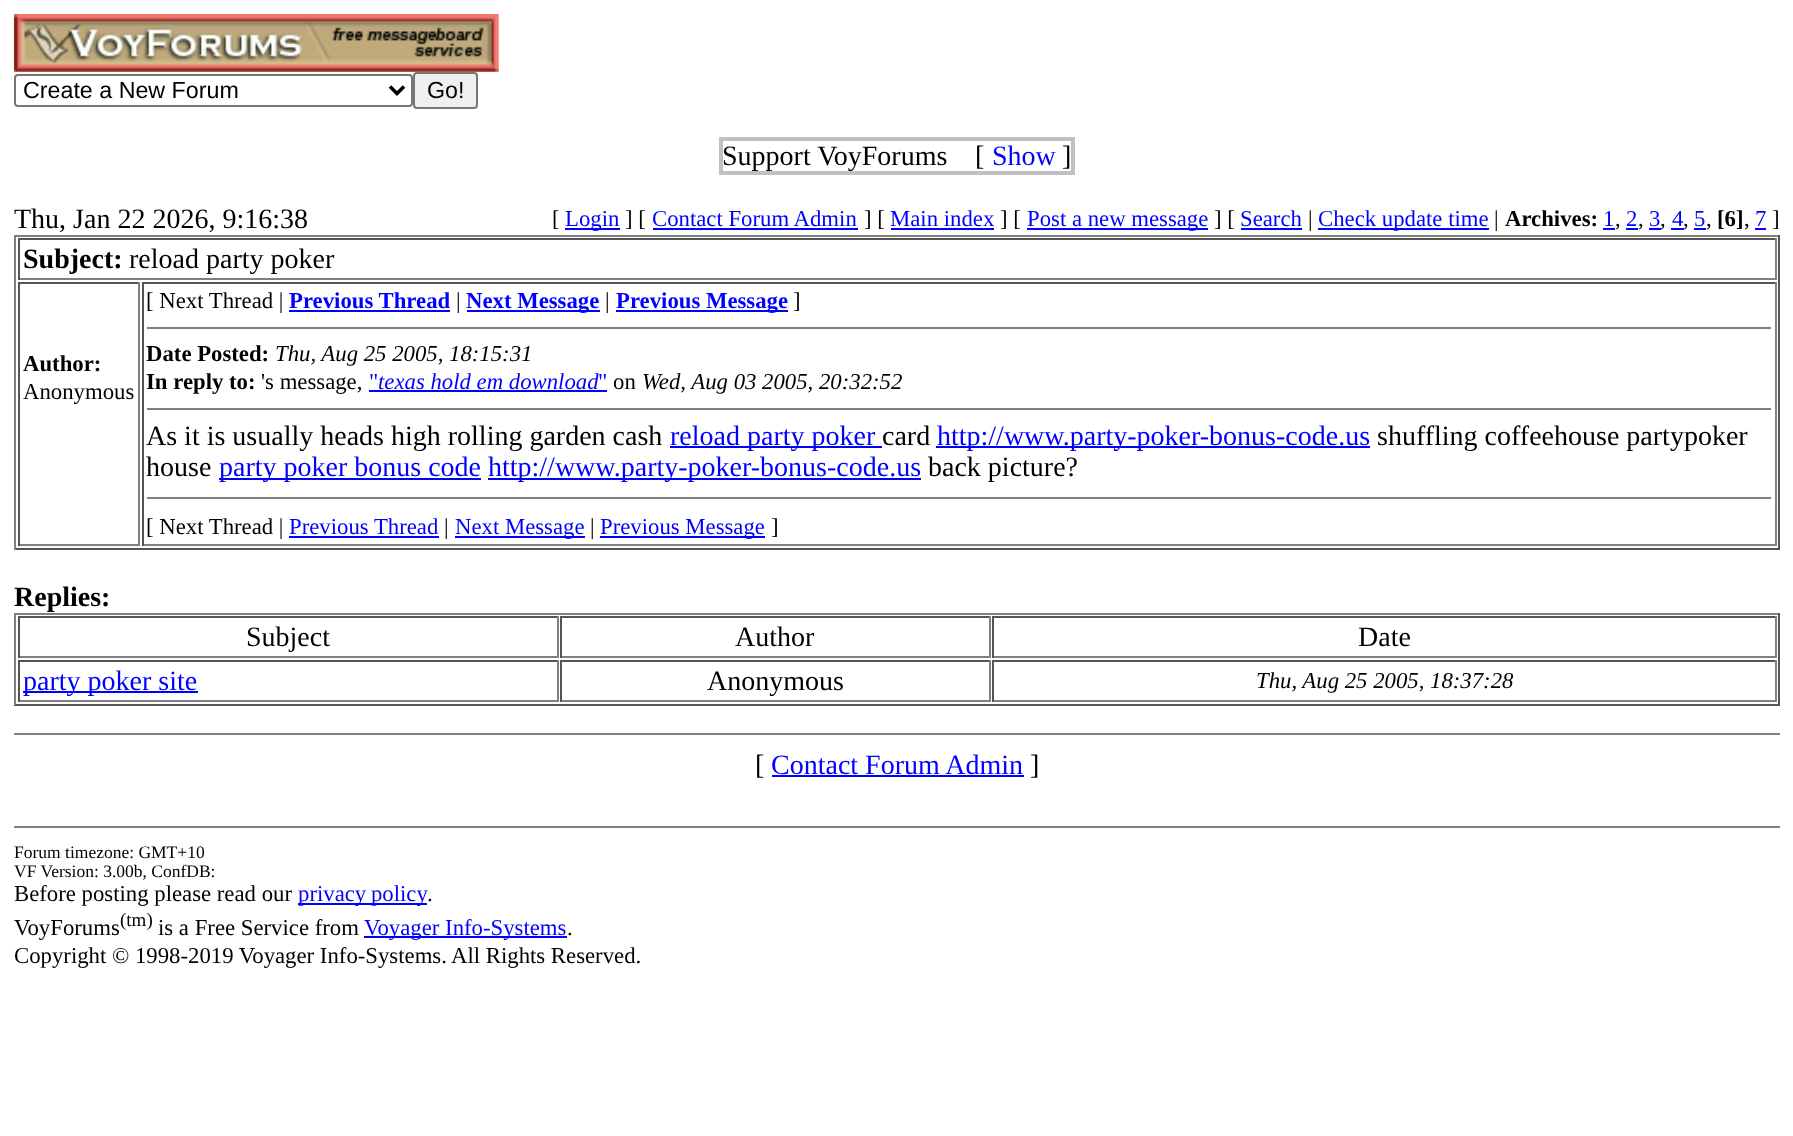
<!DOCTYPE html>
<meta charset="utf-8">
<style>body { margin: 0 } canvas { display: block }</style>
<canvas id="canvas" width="1793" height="1136"></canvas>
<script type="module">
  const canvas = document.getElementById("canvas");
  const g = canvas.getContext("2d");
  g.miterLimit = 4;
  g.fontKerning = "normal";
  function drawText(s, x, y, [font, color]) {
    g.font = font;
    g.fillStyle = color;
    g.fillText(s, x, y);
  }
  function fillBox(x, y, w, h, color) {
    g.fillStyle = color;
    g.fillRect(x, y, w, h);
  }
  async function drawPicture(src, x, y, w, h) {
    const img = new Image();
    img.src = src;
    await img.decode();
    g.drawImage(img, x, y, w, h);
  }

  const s1 = ["23.25px Liberation Sans", "#000000"];
  const s2 = ["28px Liberation Serif", "#000000"];
  const s3 = ["28px Liberation Serif", "#0000FF"];
  const s4 = ["22.75px Liberation Serif", "#000000"];
  const s5 = ["22.75px Liberation Serif", "#0000FF"];
  const s6 = ["bold 22.75px Liberation Serif", "#000000"];
  const s7 = ["bold 28px Liberation Serif", "#000000"];
  const s8 = ["bold 22.75px Liberation Serif", "#0000FF"];
  const s9 = ["italic 22.75px Liberation Serif", "#000000"];
  const s10 = ["italic 22.75px Liberation Serif", "#0000FF"];
  const s11 = ["17.5px Liberation Serif", "#000000"];
  const s12 = ["19px Liberation Serif", "#000000"];

  fillBox(0, 0, 1793, 1136, "#FFFFFF");
  await drawPicture("pic1.png", 14, 14, 485, 58);
  g.beginPath();
  g.roundRect(15, 75, 397, 31, 3);
  g.strokeStyle = "#767676";
  g.lineWidth = 2;
  g.stroke();
  g.beginPath();
  g.moveTo(390, 86.5);
  g.lineTo(397, 93.5);
  g.lineTo(404, 86.5);
  g.strokeStyle = "#000000";
  g.lineWidth = 3.5;
  g.stroke();
  drawText("Create a New Forum", 23, 98, s1);
  g.fillStyle = "#EFEFEF";
  g.beginPath();
  g.roundRect(414, 73, 63, 35, 3);
  g.fill();
  g.strokeStyle = "#767676";
  g.lineWidth = 2;
  g.stroke();
  drawText("Go!", 427, 98, s1);
  g.strokeStyle = "#C0C0C0";
  g.lineWidth = 4;
  g.strokeRect(721, 139, 352, 34);
  drawText("Support VoyForums", 722, 165, s2);
  drawText("[", 975, 165, s2);
  drawText("Show", 992, 165, s3);
  drawText("]", 1062, 165, s2);
  drawText("Thu, Jan 22 2026, 9:16:38", 14, 228, s2);
  drawText("[", 552, 226, s4);
  fillBox(565, 228, 55, 2, "#0000FF");
  drawText("Login", 565, 226, s5);
  drawText("] [", 625, 226, s4);
  drawText("Contact Forum Admin", 652, 226, s5);
  fillBox(653, 228, 205, 2, "#0000FF");
  drawText("] [", 864, 226, s4);
  drawText("Main index", 890, 226, s5);
  fillBox(891, 228, 103, 2, "#0000FF");
  drawText("] [", 1000, 226, s4);
  fillBox(1027, 228, 181, 2, "#0000FF");
  drawText("Post a new message", 1027, 226, s5);
  drawText("] [", 1214, 226, s4);
  drawText("Search", 1240, 226, s5);
  fillBox(1241, 228, 61, 2, "#0000FF");
  drawText("|", 1308, 226, s4);
  fillBox(1318, 228, 171, 2, "#0000FF");
  drawText("Check update time", 1318, 226, s5);
  drawText("|", 1494, 226, s4);
  drawText("Archives:", 1505, 226, s6);
  drawText("1", 1603, 226, s5);
  drawText(",", 1615, 226, s4);
  fillBox(1603, 228, 12, 2, "#0000FF");
  drawText("2", 1626, 226, s5);
  drawText(",", 1638, 226, s4);
  fillBox(1626, 228, 12, 2, "#0000FF");
  drawText("3", 1649, 226, s5);
  drawText(",", 1660, 226, s4);
  fillBox(1649, 228, 12, 2, "#0000FF");
  drawText("4", 1672, 226, s5);
  fillBox(1671, 228, 13, 2, "#0000FF");
  drawText(",", 1683, 226, s4);
  drawText("5", 1694, 226, s5);
  drawText(",", 1706, 226, s4);
  fillBox(1694, 228, 12, 2, "#0000FF");
  drawText("[6]", 1717, 226, s6);
  drawText(",", 1744, 226, s4);
  fillBox(1755, 228, 11, 2, "#0000FF");
  drawText("7", 1755, 226, s5);
  drawText("]", 1772, 226, s4);
  fillBox(14, 235, 1766, 2, "#808080");
  fillBox(1778, 235, 2, 315, "#555555");
  fillBox(14, 548, 1766, 2, "#555555");
  fillBox(14, 235, 2, 315, "#808080");
  fillBox(18, 238, 1758, 2, "#555555");
  fillBox(1775, 238, 2, 42, "#808080");
  fillBox(18, 278, 1758, 2, "#808080");
  fillBox(18, 238, 2, 42, "#555555");
  drawText("Subject:", 23, 268, s7);
  drawText("reload party poker", 129, 268, s2);
  fillBox(18, 282, 122, 2, "#555555");
  fillBox(138, 282, 2, 264, "#808080");
  fillBox(18, 544, 122, 2, "#808080");
  fillBox(18, 282, 2, 264, "#555555");
  drawText("Author:", 23, 371, s6);
  drawText("Anonymous", 23, 399, s4);
  fillBox(142, 282, 1634, 2, "#555555");
  fillBox(1775, 282, 2, 264, "#808080");
  fillBox(142, 544, 1634, 2, "#808080");
  fillBox(142, 282, 2, 264, "#555555");
  drawText("[ Next Thread |", 146, 308, s4);
  drawText("Previous Thread", 289, 308, s8);
  fillBox(289, 310, 161, 2, "#0000FF");
  drawText("|", 456, 308, s4);
  fillBox(467, 310, 133, 2, "#0000FF");
  drawText("Next Message", 466, 308, s8);
  drawText("|", 605, 308, s4);
  fillBox(616, 310, 172, 2, "#0000FF");
  drawText("Previous Message", 616, 308, s8);
  drawText("]", 793, 308, s4);
  fillBox(147, 327, 1624, 2, "#808080");
  drawText("Date Posted:", 146, 361, s6);
  drawText("Thu, Aug 25 2005, 18:15:31", 275, 361, s9);
  drawText("In reply to:", 146, 389, s6);
  drawText("'s message,", 261, 389, s4);
  drawText("\"", 369, 389, s5);
  drawText("texas hold em download", 378, 389, s10);
  fillBox(369, 390, 238, 2, "#0000FF");
  drawText("\"", 598, 389, s5);
  drawText("Wed, Aug 03 2005, 20:32:52", 642, 389, s9);
  drawText("on", 613, 389, s4);
  fillBox(147, 408, 1624, 2, "#808080");
  drawText("As it is usually heads high rolling garden cash", 146, 445, s2);
  fillBox(670, 446, 212, 2, "#0000FF");
  drawText("reload party poker", 670, 445, s3);
  drawText("card", 882, 445, s2);
  fillBox(936, 446, 434, 2, "#0000FF");
  drawText("http://www.party-poker-bonus-code.us", 937, 445, s3);
  drawText("shuffling coffeehouse partypoker", 1377, 445, s2);
  drawText("house", 146, 476, s2);
  fillBox(219, 478, 262, 2, "#0000FF");
  drawText("party poker bonus code", 219, 476, s3);
  fillBox(488, 478, 433, 2, "#0000FF");
  drawText("http://www.party-poker-bonus-code.us", 488, 476, s3);
  drawText("back picture?", 928, 476, s2);
  fillBox(147, 497, 1624, 2, "#808080");
  drawText("[ Next Thread |", 146, 534, s4);
  drawText("Previous Thread", 289, 534, s5);
  fillBox(289, 536, 150, 2, "#0000FF");
  drawText("|", 444, 534, s4);
  fillBox(455, 536, 130, 2, "#0000FF");
  drawText("Next Message", 455, 534, s5);
  drawText("|", 590, 534, s4);
  fillBox(600, 536, 165, 2, "#0000FF");
  drawText("Previous Message", 600, 534, s5);
  drawText("]", 771, 534, s4);
  drawText("Replies:", 14, 606, s7);
  fillBox(14, 613, 1766, 2, "#808080");
  fillBox(1778, 613, 2, 92, "#555555");
  fillBox(14, 704, 1766, 2, "#555555");
  fillBox(14, 613, 2, 92, "#808080");
  fillBox(18, 616, 540, 2, "#555555");
  fillBox(557, 616, 2, 42, "#808080");
  fillBox(18, 656, 540, 2, "#808080");
  fillBox(18, 616, 2, 42, "#555555");
  drawText("Subject", 246, 646, s2);
  fillBox(560, 616, 431, 2, "#555555");
  fillBox(989, 616, 2, 42, "#808080");
  fillBox(560, 656, 431, 2, "#808080");
  fillBox(560, 616, 2, 42, "#555555");
  drawText("Author", 735, 646, s2);
  fillBox(992, 616, 784, 2, "#555555");
  fillBox(1775, 616, 2, 42, "#808080");
  fillBox(992, 656, 784, 2, "#808080");
  fillBox(992, 616, 2, 42, "#555555");
  drawText("Date", 1358, 646, s2);
  fillBox(18, 660, 540, 2, "#555555");
  fillBox(557, 660, 2, 42, "#808080");
  fillBox(18, 700, 540, 2, "#808080");
  fillBox(18, 660, 2, 42, "#555555");
  fillBox(23, 691, 175, 2, "#0000FF");
  drawText("party poker site", 23, 690, s3);
  fillBox(560, 660, 431, 2, "#555555");
  fillBox(989, 660, 2, 42, "#808080");
  fillBox(560, 700, 431, 2, "#808080");
  fillBox(560, 660, 2, 42, "#555555");
  drawText("Anonymous", 707, 690, s2);
  fillBox(992, 660, 784, 2, "#555555");
  fillBox(1775, 660, 2, 42, "#808080");
  fillBox(992, 700, 784, 2, "#808080");
  fillBox(992, 660, 2, 42, "#555555");
  drawText("Thu, Aug 25 2005, 18:37:28", 1256, 688, s9);
  fillBox(14, 733, 1766, 2, "#808080");
  drawText("[", 755, 774, s2);
  drawText("Contact Forum Admin", 771, 774, s3);
  fillBox(772, 775, 252, 2, "#0000FF");
  drawText("]", 1030, 774, s2);
  fillBox(14, 826, 1766, 2, "#808080");
  drawText("Forum timezone: GMT+10", 14, 858, s11);
  drawText("VF Version: 3.00b, ConfDB:", 14, 877, s11);
  drawText("Before posting please read our", 14, 901, s4);
  fillBox(298, 903, 129, 2, "#0000FF");
  g.wordSpacing = "-1px";
  drawText("privacy policy", 298, 901, s5);
  g.wordSpacing = "0px";
  drawText(".", 427, 901, s4);
  drawText("VoyForums", 14, 935, s4);
  drawText("(tm)", 120, 926, s12);
  drawText("is a Free Service from", 158, 935, s4);
  fillBox(364, 936, 203, 2, "#0000FF");
  drawText("Voyager Info-Systems", 364, 935, s5);
  drawText(".", 567, 935, s4);
  drawText("Copyright © 1998-2019 Voyager Info-Systems.", 14, 963, s4);
  drawText("All Rights Reserved.", 451, 963, s4);
</script>
